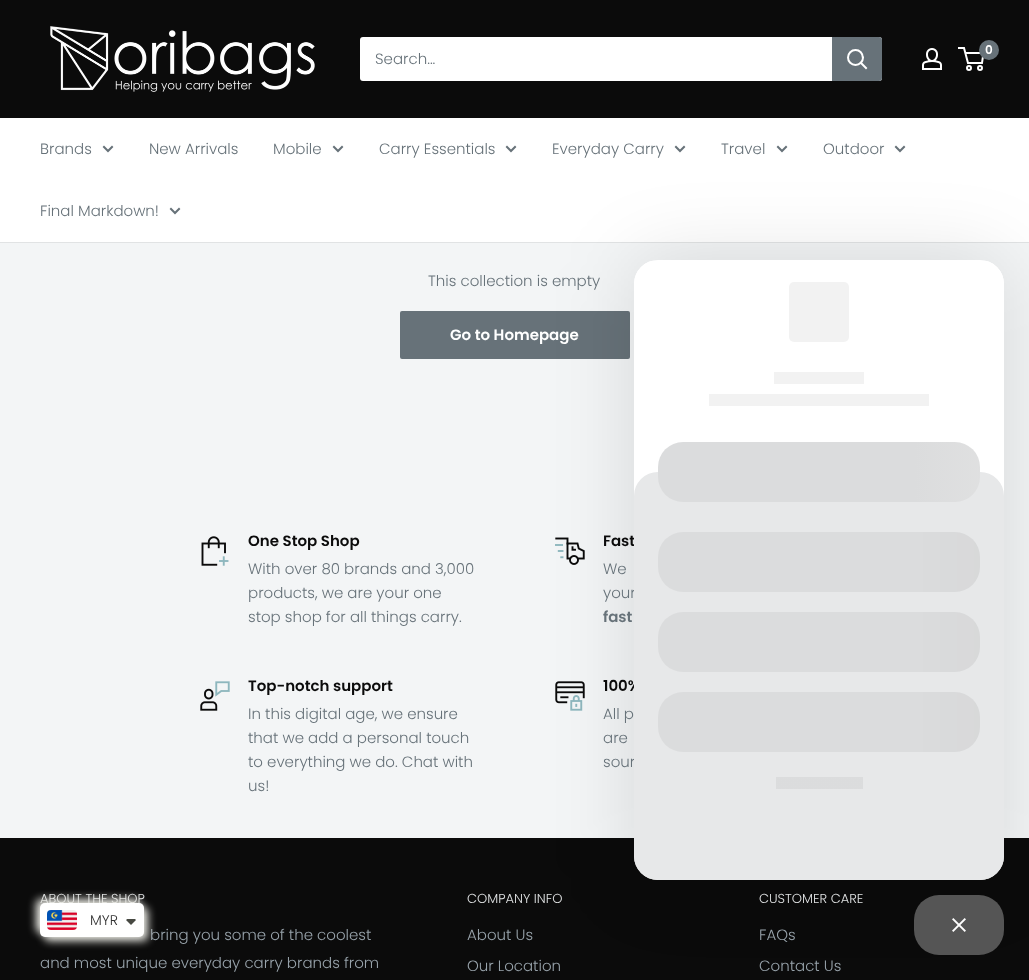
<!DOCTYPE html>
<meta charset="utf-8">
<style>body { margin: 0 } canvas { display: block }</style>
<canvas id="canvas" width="1029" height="980"></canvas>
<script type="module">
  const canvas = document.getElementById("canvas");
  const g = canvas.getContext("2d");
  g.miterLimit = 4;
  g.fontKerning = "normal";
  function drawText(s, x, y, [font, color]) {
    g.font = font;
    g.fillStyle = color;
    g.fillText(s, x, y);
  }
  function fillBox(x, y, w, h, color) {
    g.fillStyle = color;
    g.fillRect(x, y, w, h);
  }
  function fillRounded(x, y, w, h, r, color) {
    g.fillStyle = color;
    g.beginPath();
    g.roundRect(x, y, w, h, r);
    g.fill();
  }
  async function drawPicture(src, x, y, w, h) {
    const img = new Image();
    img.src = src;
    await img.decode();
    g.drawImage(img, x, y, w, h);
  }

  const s1 = ["600 12px Poppins", "#FFFFFF"];
  const s2 = ["300 15px Poppins", "#677279"];
  const s3 = ["600 15px Poppins", "#0B0B0B"];
  const s4 = ["600 15px Poppins", "#FFFFFF"];
  const s5 = ["600 15px Poppins", "#677279"];
  const s6 = ["300 13px Poppins", "#E1E3E4"];
  const s7 = ["300 15px Poppins", "#98A3AB"];
  const s8 = ["300 14px Poppins", "#333333"];

  fillBox(0, 0, 1029, 980, "#F3F5F6");
  fillBox(0, 0, 1029, 118, "#0B0B0B");
  await drawPicture("pic1.png", 50, 26, 265, 66);
  await drawPicture("pic2.png", 922, 48, 20, 22);
  g.beginPath();
  g.arc(969, 68, 2, 0, Math.PI * 2);
  g.strokeStyle = "#FFFFFF";
  g.lineWidth = 2;
  g.stroke();
  g.beginPath();
  g.arc(980, 68, 2, 0, Math.PI * 2);
  g.stroke();
  g.beginPath();
  g.moveTo(965.5, 53);
  g.lineTo(983.5, 53);
  g.lineTo(982, 63);
  g.lineTo(968, 63);
  g.lineTo(964, 48);
  g.lineTo(958, 48);
  g.stroke();
  g.fillStyle = "#677279";
  g.beginPath();
  g.arc(989, 50, 10, 0, Math.PI * 2);
  g.fill();
  drawText("0", 985, 54, s1);
  fillRounded(360, 37, 522, 44, 3, "#FFFFFF");
  drawText("Search...", 375, 64, s2);
  g.beginPath();
  g.roundRect(832, 37, 50, 44, [0, 3, 3, 0]);
  g.fill();
  g.beginPath();
  g.moveTo(866, 68);
  g.lineTo(861, 63);
  g.lineCap = "square";
  g.stroke();
  g.beginPath();
  g.arc(855.5, 57.5, 7.5, 0, Math.PI * 2);
  g.stroke();
  fillBox(0, 118, 1029, 124, "#FFFFFF");
  fillBox(0, 242, 1029, 1, "#E1E3E4");
  drawText("Brands", 40, 154, s2);
  g.beginPath();
  g.moveTo(112, 147);
  g.lineTo(108, 151);
  g.lineTo(104, 147);
  g.strokeStyle = "#677279";
  g.stroke();
  drawText("New Arrivals", 149, 154, s2);
  drawText("Mobile", 273, 154, s2);
  g.beginPath();
  g.moveTo(342, 147);
  g.lineTo(338, 151);
  g.lineTo(334, 147);
  g.stroke();
  drawText("Carry Essentials", 379, 154, s2);
  g.beginPath();
  g.moveTo(515, 147);
  g.lineTo(511, 151);
  g.lineTo(507, 147);
  g.stroke();
  drawText("Everyday Carry", 552, 154, s2);
  g.beginPath();
  g.moveTo(684, 147);
  g.lineTo(680, 151);
  g.lineTo(676, 147);
  g.stroke();
  drawText("Travel", 721, 154, s2);
  g.beginPath();
  g.moveTo(786, 147);
  g.lineTo(782, 151);
  g.lineTo(778, 147);
  g.stroke();
  drawText("Outdoor", 823, 154, s2);
  g.beginPath();
  g.moveTo(904, 147);
  g.lineTo(900, 151);
  g.lineTo(896, 147);
  g.stroke();
  drawText("Final Markdown!", 40, 216, s2);
  g.beginPath();
  g.moveTo(179, 209);
  g.lineTo(175, 213);
  g.lineTo(171, 209);
  g.stroke();
  fillRounded(400, 311, 230, 48, 2, "#677279");
  await drawPicture("pic5.png", 555, 537, 30, 28);
  await drawPicture("pic7.png", 555, 681, 30, 30);
  fillBox(0, 838, 1029, 142, "#0B0B0B");
  g.fillStyle = "rgba(0, 0, 0, 0.12)";
  g.filter = "blur(40px)";
  g.beginPath();
  g.roundRect(634, 260, 370, 620, 24);
  g.fill();
  g.filter = "none";
  drawText("Fast", 603, 546, s3);
  drawText("your", 603, 598, s2);
  drawText("100%", 603, 691, s3);
  drawText("sour", 603, 767, s2);
  fillRounded(634, 260, 370, 620, 24, "#FFFFFF");
  await drawPicture("pic3.png", 634, 261, 370, 619);
  drawText("This collection is empty", 428, 286, s2);
  drawText("Go to Homepage", 450, 340, s4);
  await drawPicture("pic4.png", 201, 536, 28, 30);
  drawText("One Stop Shop", 248, 546, s3);
  drawText("With over 80 brands and 3,000", 248, 574, s2);
  drawText("products, we are your one", 248, 598, s2);
  drawText("stop shop for all things carry.", 248, 622, s2);
  drawText("We", 603, 574, s2);
  drawText("fast", 603, 622, s5);
  await drawPicture("pic6.png", 200, 681, 30, 30);
  drawText("Top-notch support", 248, 691, s3);
  drawText("In this digital age, we ensure", 248, 719, s2);
  drawText("that we add a personal touch", 248, 743, s2);
  drawText("to everything we do. Chat with", 248, 767, s2);
  drawText("us!", 248, 791, s2);
  drawText("All p", 603, 719, s2);
  drawText("are", 603, 743, s2);
  drawText("ABOUT THE SHOP", 40, 903, s6);
  drawText("bring you some of the coolest", 150, 940, s7);
  drawText("and most unique everyday carry brands from", 40, 968, s7);
  drawText("COMPANY INFO", 467, 903, s6);
  drawText("About Us", 467, 940, s7);
  drawText("Our Location", 467, 971, s7);
  drawText("CUSTOMER CARE", 759, 903, s6);
  drawText("FAQs", 759, 940, s7);
  drawText("Contact Us", 759, 971, s7);
  fillRounded(914, 895, 90, 60, 25, "#555555");
  await drawPicture("pic8.png", 952, 918, 14, 14);
  g.fillStyle = "#E8E8E2";
  g.filter = "blur(4.5px)";
  g.beginPath();
  g.roundRect(36, 899, 104, 34, 5);
  g.fill();
  g.filter = "none";
  g.filter = "blur(4.5px)";
  g.beginPath();
  g.roundRect(44, 907, 104, 34, 5);
  g.fill();
  g.filter = "none";
  fillRounded(40, 903, 104, 34, 5, "#FFFFFF");
  await drawPicture("pic9.png", 47, 910, 30, 20);
  drawText("MYR", 90, 925, s8);
  g.fillStyle = "#474942";
  g.beginPath();
  g.moveTo(128, 919);
  g.bezierCurveTo(127, 919, 126.5, 919.5, 126, 920);
  g.lineTo(131, 925);
  g.lineTo(136, 920);
  g.lineTo(135, 919);
  g.closePath();
  g.fill();
</script>
